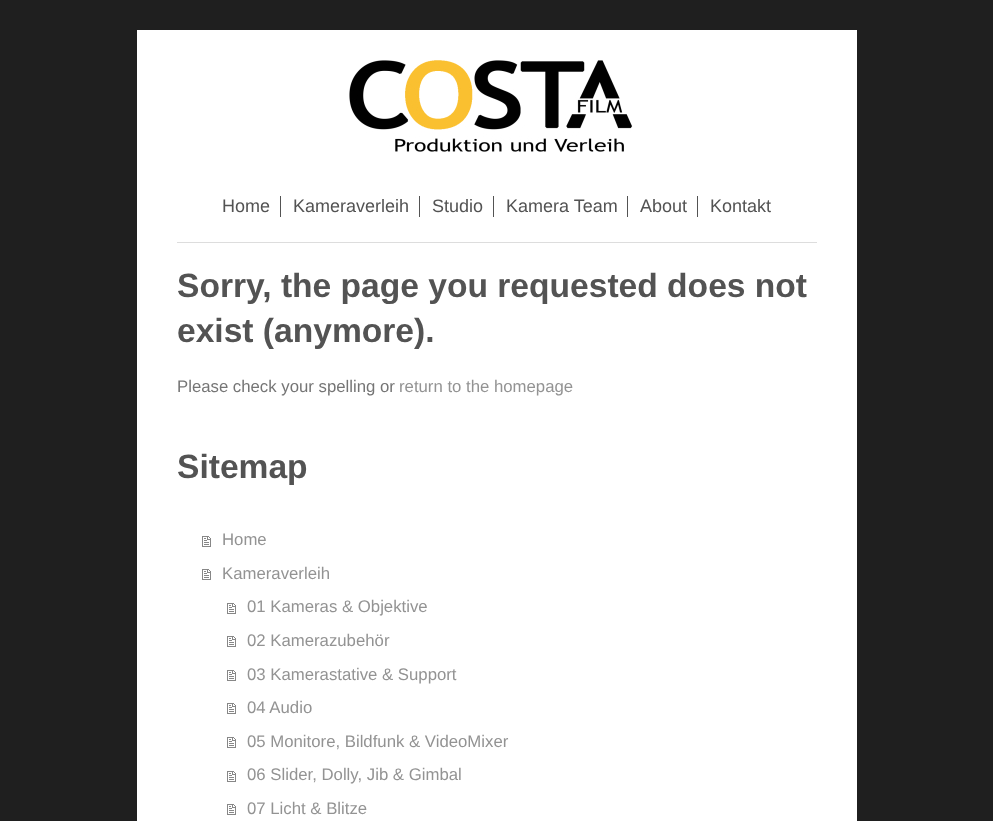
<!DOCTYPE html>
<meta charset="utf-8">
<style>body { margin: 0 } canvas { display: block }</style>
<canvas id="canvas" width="993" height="821"></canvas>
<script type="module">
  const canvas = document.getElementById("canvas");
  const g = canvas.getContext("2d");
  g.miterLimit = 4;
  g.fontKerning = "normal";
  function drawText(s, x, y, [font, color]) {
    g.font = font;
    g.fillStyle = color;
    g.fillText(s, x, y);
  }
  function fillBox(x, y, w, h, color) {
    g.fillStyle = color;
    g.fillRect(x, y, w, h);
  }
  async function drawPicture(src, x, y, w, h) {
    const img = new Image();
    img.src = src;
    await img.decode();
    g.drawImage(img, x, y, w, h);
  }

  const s1 = ["18px Liberation Sans", "#535353"];
  const s2 = ["bold 33.6px Liberation Sans", "#535353"];
  const s3 = ["16.75px Liberation Sans", "#757575"];
  const s4 = ["16.75px Liberation Sans", "#939393"];

  fillBox(0, 0, 993, 821, "#1F1F1F");
  fillBox(137, 30, 720, 791, "#FFFFFF");
  await drawPicture("pic1.png", 349, 60, 284, 92);
  fillBox(177, 242, 640, 1, "#DDDDDD");
  fillBox(280, 196, 1, 21, "#535353");
  drawText("Home", 222, 212, s1);
  fillBox(419, 196, 1, 21, "#535353");
  drawText("Kameraverleih", 293, 212, s1);
  fillBox(493, 196, 1, 21, "#535353");
  drawText("Studio", 432, 212, s1);
  fillBox(627, 196, 1, 21, "#535353");
  drawText("Kamera Team", 506, 212, s1);
  fillBox(697, 196, 1, 21, "#535353");
  drawText("About", 640, 212, s1);
  drawText("Kontakt", 710, 212, s1);
  drawText("Sorry, the page you requested does not", 177, 297, s2);
  drawText("exist (anymore).", 177, 342, s2);
  drawText("Please check your spelling or", 177, 392, s3);
  drawText("return to the homepage", 399, 392, s4);
  drawText("Sitemap", 177, 478, s2);
  await drawPicture("pic2.png", 202, 536, 9, 11);
  drawText("Home", 222, 545, s4);
  await drawPicture("pic2.png", 202, 569, 9, 11);
  drawText("Kameraverleih", 222, 579, s4);
  await drawPicture("pic2.png", 227, 603, 9, 11);
  drawText("01 Kameras & Objektive", 247, 612, s4);
  await drawPicture("pic2.png", 227, 636, 9, 11);
  drawText("02 Kamerazubehör", 247, 646, s4);
  await drawPicture("pic2.png", 227, 670, 9, 11);
  drawText("03 Kamerastative & Support", 247, 680, s4);
  await drawPicture("pic2.png", 227, 703, 9, 11);
  drawText("04 Audio", 247, 713, s4);
  await drawPicture("pic2.png", 227, 737, 9, 11);
  drawText("05 Monitore, Bildfunk & VideoMixer", 247, 747, s4);
  await drawPicture("pic2.png", 227, 771, 9, 11);
  drawText("06 Slider, Dolly, Jib & Gimbal", 247, 780, s4);
  await drawPicture("pic2.png", 227, 804, 9, 11);
  drawText("07 Licht & Blitze", 247, 814, s4);
</script>
